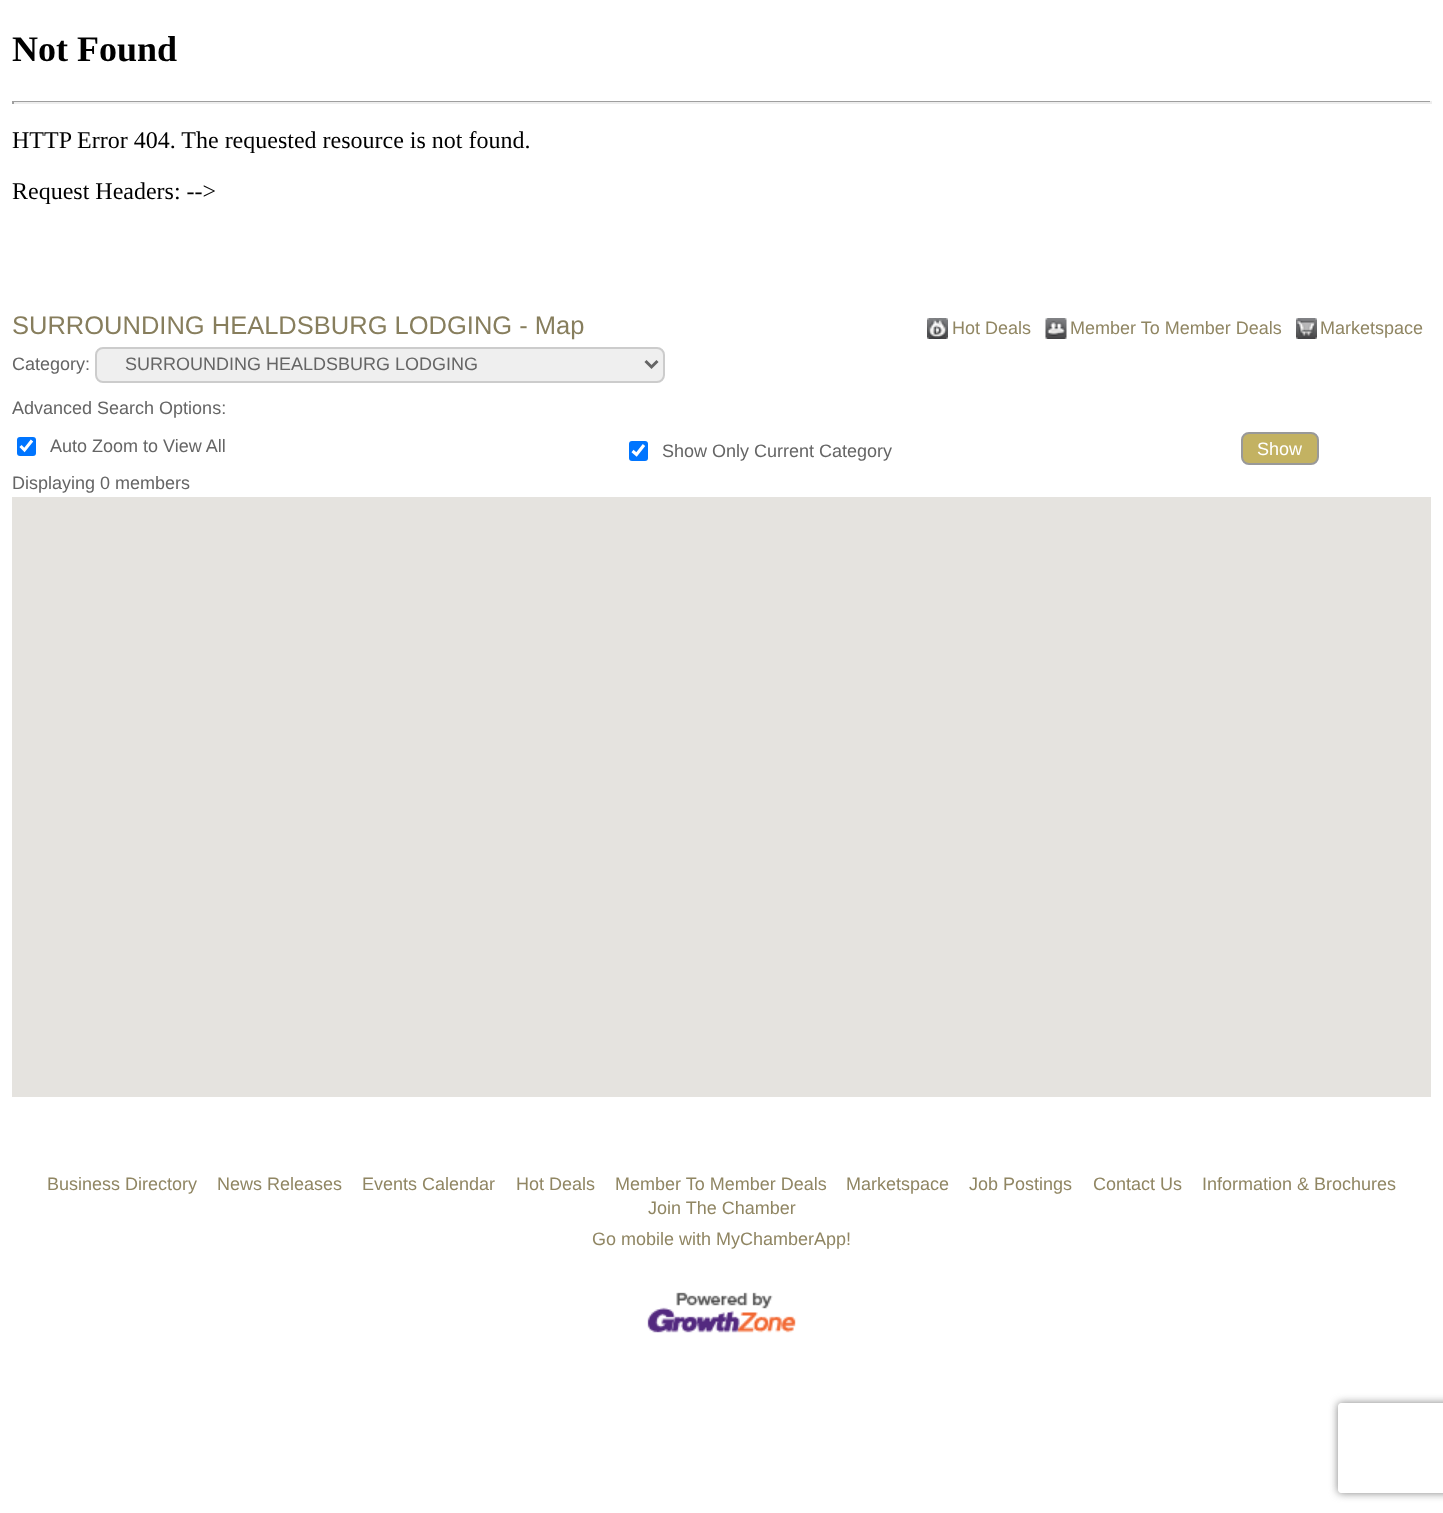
<!DOCTYPE html>
<meta charset="utf-8">
<style>body { margin: 0 } canvas { display: block }</style>
<canvas id="canvas" width="1443" height="1513"></canvas>
<script type="module">
  const canvas = document.getElementById("canvas");
  const g = canvas.getContext("2d");
  g.miterLimit = 4;
  g.fontKerning = "normal";
  function drawText(s, x, y, [font, color]) {
    g.font = font;
    g.fillStyle = color;
    g.fillText(s, x, y);
  }
  function fillBox(x, y, w, h, color) {
    g.fillStyle = color;
    g.fillRect(x, y, w, h);
  }
  function fillRounded(x, y, w, h, r, color) {
    g.fillStyle = color;
    g.beginPath();
    g.roundRect(x, y, w, h, r);
    g.fill();
  }
  async function drawPicture(src, x, y, w, h) {
    const img = new Image();
    img.src = src;
    await img.decode();
    g.drawImage(img, x, y, w, h);
  }

  const s1 = ["bold 36px Liberation Serif", "#000000"];
  const s2 = ["24px Liberation Serif", "#000000"];
  const s3 = ["25.5px Liberation Sans", "#877E5D"];
  const s4 = ["18px Liberation Sans", "#908663"];
  const s5 = ["18px Liberation Sans", "#656565"];
  const s6 = ["18px Liberation Sans", "#FFFFFF"];

  fillBox(0, 0, 1443, 1513, "#FFFFFF");
  drawText("Not Found", 12, 61, s1);
  fillBox(12, 101, 1419, 1, "#9F9F9F");
  fillBox(1430, 101, 2, 3, "#EEEEEE");
  fillBox(12, 102, 1419, 2, "#EEEEEE");
  fillBox(12, 101, 2, 3, "#9F9F9F");
  drawText("HTTP Error 404. The requested resource is not found.", 12, 148, s2);
  drawText("Request Headers: -->", 12, 199, s2);
  drawText("SURROUNDING HEALDSBURG LODGING - Map", 12, 334, s3);
  await drawPicture("pic1.png", 927, 318, 21, 21);
  drawText("Hot Deals", 952, 334, s4);
  await drawPicture("pic2.png", 1045, 318, 22, 21);
  drawText("Member To Member Deals", 1070, 334, s4);
  await drawPicture("pic3.png", 1296, 318, 21, 21);
  drawText("Marketspace", 1320, 334, s4);
  drawText("Category:", 12, 370, s5);
  g.fillStyle = "#EFEFEF";
  g.beginPath();
  g.roundRect(96, 348, 568, 34, 7);
  g.fill();
  g.strokeStyle = "#CCCCCC";
  g.lineWidth = 2;
  g.stroke();
  g.beginPath();
  g.moveTo(645.5, 361);
  g.lineTo(651.5, 367);
  g.lineTo(657.5, 361);
  g.strokeStyle = "#656565";
  g.lineWidth = 3;
  g.stroke();
  drawText("SURROUNDING HEALDSBURG LODGING", 125, 370, s5);
  drawText("Advanced Search Options:", 12, 414, s5);
  fillRounded(17, 437, 19, 19, 3, "#0075FF");
  g.beginPath();
  g.moveTo(20.5, 446);
  g.lineTo(24.5, 450);
  g.lineTo(32, 440.5);
  g.strokeStyle = "#FFFFFF";
  g.lineWidth = 3.1;
  g.stroke();
  drawText("Auto Zoom to View All", 50, 452, s5);
  fillRounded(629, 441, 19, 20, 3, "#0075FF");
  g.beginPath();
  g.moveTo(632.5, 451);
  g.lineTo(636.5, 454.5);
  g.lineTo(644, 445);
  g.stroke();
  drawText("Show Only Current Category", 662, 457, s5);
  g.fillStyle = "#C3B262";
  g.beginPath();
  g.roundRect(1242, 433, 76, 31, 7);
  g.fill();
  g.strokeStyle = "#999999";
  g.lineWidth = 2;
  g.stroke();
  drawText("Show", 1257, 455, s6);
  drawText("Displaying 0 members", 12, 489, s5);
  fillBox(12, 497, 1419, 600, "#E5E3DF");
  drawText("Business Directory", 47, 1190, s4);
  drawText("News Releases", 217, 1190, s4);
  drawText("Events Calendar", 362, 1190, s4);
  drawText("Hot Deals", 516, 1190, s4);
  drawText("Member To Member Deals", 615, 1190, s4);
  drawText("Marketspace", 846, 1190, s4);
  drawText("Job Postings", 969, 1190, s4);
  drawText("Contact Us", 1093, 1190, s4);
  drawText("Information & Brochures", 1202, 1190, s4);
  drawText("Join The Chamber", 648, 1214, s4);
  drawText("Go mobile with MyChamberApp!", 592, 1245, s4);
  await drawPicture("pic4.png", 647, 1292, 149, 41);
  g.save();
  g.beginPath();
  g.moveTo(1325, 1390);
  g.lineTo(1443, 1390);
  g.lineTo(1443, 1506);
  g.lineTo(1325, 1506);
  g.closePath();
  g.moveTo(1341, 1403);
  g.lineTo(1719, 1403);
  g.bezierCurveTo(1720.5, 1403, 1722, 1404.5, 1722, 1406);
  g.lineTo(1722, 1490);
  g.bezierCurveTo(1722, 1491.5, 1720.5, 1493, 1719, 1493);
  g.lineTo(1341, 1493);
  g.bezierCurveTo(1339.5, 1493, 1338, 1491.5, 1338, 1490);
  g.lineTo(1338, 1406);
  g.bezierCurveTo(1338, 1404.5, 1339.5, 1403, 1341, 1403);
  g.closePath();
  g.clip("evenodd");
  g.fillStyle = "#808080";
  g.filter = "blur(4px)";
  g.beginPath();
  g.roundRect(1338, 1403, 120, 90, 3);
  g.fill();
  g.filter = "none";
  g.restore();
</script>
